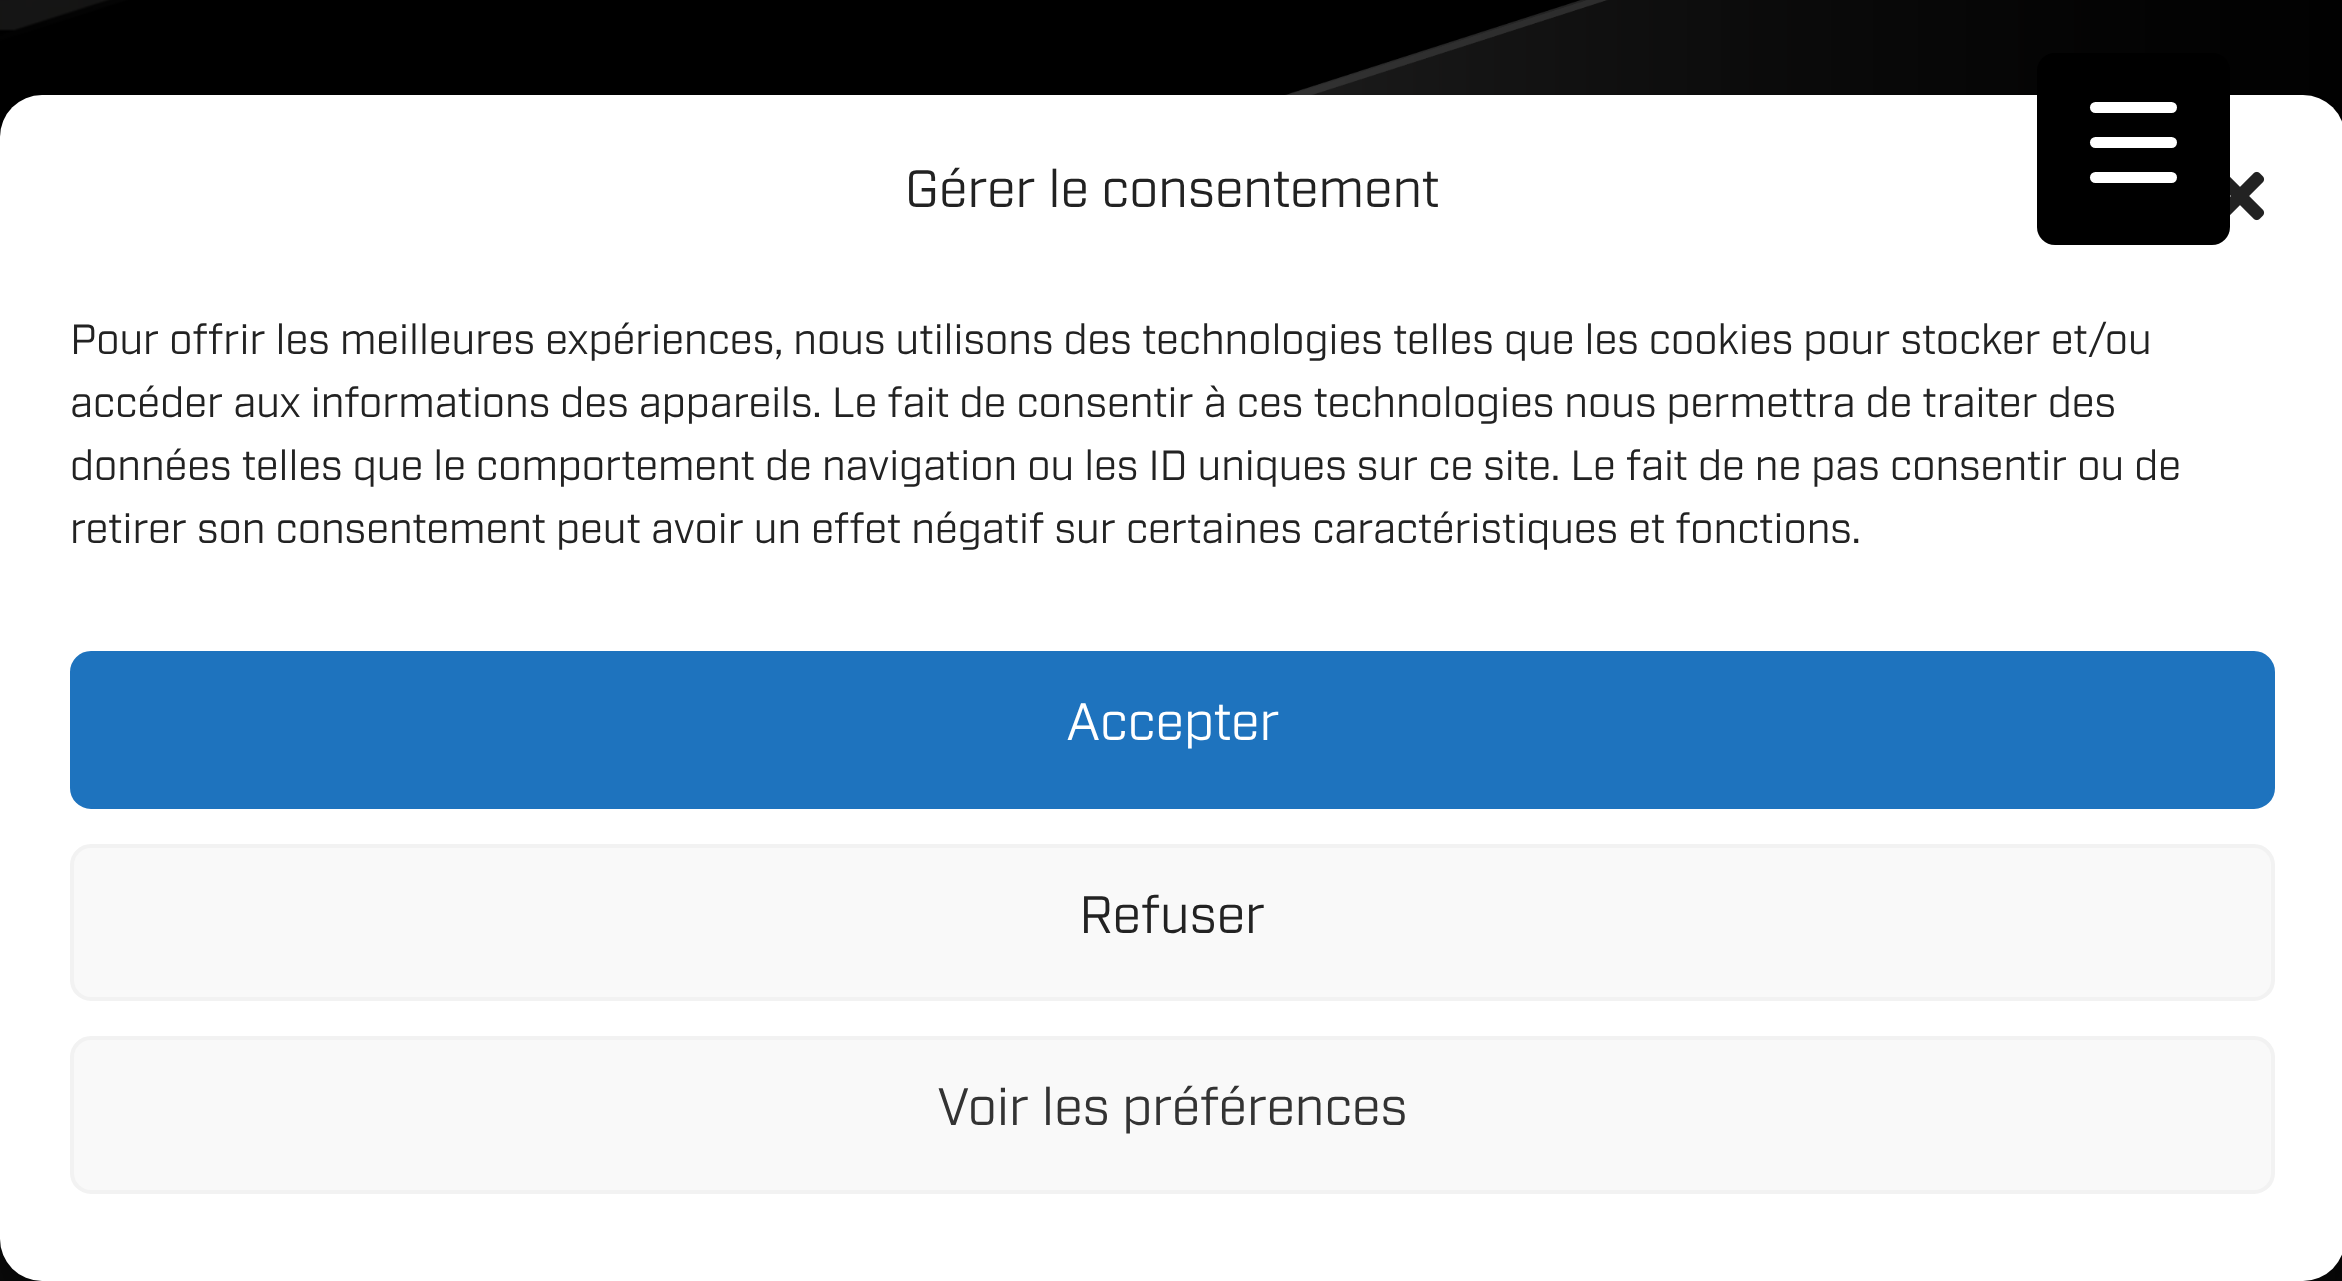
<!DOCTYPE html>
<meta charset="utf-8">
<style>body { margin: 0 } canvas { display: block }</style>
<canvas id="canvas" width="2342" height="1281"></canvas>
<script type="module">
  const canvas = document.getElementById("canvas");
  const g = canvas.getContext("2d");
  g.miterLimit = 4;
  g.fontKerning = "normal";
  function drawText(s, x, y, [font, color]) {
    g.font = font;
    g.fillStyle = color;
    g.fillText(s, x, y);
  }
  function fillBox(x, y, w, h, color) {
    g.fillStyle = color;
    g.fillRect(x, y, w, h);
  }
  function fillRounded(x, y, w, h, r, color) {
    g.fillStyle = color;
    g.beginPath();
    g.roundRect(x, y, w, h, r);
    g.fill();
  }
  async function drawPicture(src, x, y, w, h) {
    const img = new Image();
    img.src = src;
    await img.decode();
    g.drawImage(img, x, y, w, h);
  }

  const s1 = ["52.5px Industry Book", "#222222"];
  const s2 = ["42px Industry Book", "#222222"];
  const s3 = ["52.5px Industry Book", "#FFFFFF"];
  const s4 = ["52.5px Industry Book", "#333333"];

  fillBox(0, 0, 2342, 1281, "#000000");
  await drawPicture("pic1.png", 0, 0, 2342, 1281);
  await drawPicture("pic2.png", 0, 0, 128, 41);
  fillBox(0, 0, 2342, 137, "rgba(0, 0, 0, 0.8)");
  g.fillStyle = "rgba(0, 0, 0, 0.23)";
  g.filter = "blur(10.5px)";
  g.beginPath();
  g.roundRect(0, 116, 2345, 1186, 42);
  g.fill();
  g.filter = "none";
  fillRounded(0, 95, 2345, 1186, 42, "#FFFFFF");
  fillRounded(2037, 53, 193, 192, 18, "#000000");
  fillRounded(2090, 137, 87, 11, 5.5, "#FFFFFF");
  fillRounded(2090, 102, 87, 11, 5.5, "#FFFFFF");
  fillRounded(2090, 172, 87, 11, 5.5, "#FFFFFF");
  drawText("Gérer le consentement", 905, 207, s1);
  await drawPicture("pic3.png", 2230, 171, 35, 50);
  drawText("Pour offrir les meilleures expériences, nous utilisons des technologies telles que les cookies pour stocker et/ou", 70, 354, s2);
  drawText("accéder aux informations des appareils. Le fait de consentir à ces technologies nous permettra de traiter des", 70, 417, s2);
  drawText("données telles que le comportement de navigation ou les ID uniques sur ce site. Le fait de ne pas consentir ou de", 70, 480, s2);
  drawText("retirer son consentement peut avoir un effet négatif sur certaines caractéristiques et fonctions.", 70, 543, s2);
  g.fillStyle = "#1E73BE";
  g.beginPath();
  g.roundRect(72, 653, 2201, 154, 19);
  g.fill();
  g.strokeStyle = "#1E73BE";
  g.lineWidth = 4;
  g.stroke();
  drawText("Accepter", 1066, 740, s3);
  g.fillStyle = "#F9F9F9";
  g.beginPath();
  g.roundRect(72, 846, 2201, 153, 19);
  g.fill();
  g.strokeStyle = "#F2F2F2";
  g.stroke();
  drawText("Refuser", 1079, 933, s1);
  g.fillStyle = "#F9F9F9";
  g.beginPath();
  g.roundRect(72, 1038, 2201, 154, 19);
  g.fill();
  g.stroke();
  drawText("Voir les préférences", 937, 1125, s4);
</script>
